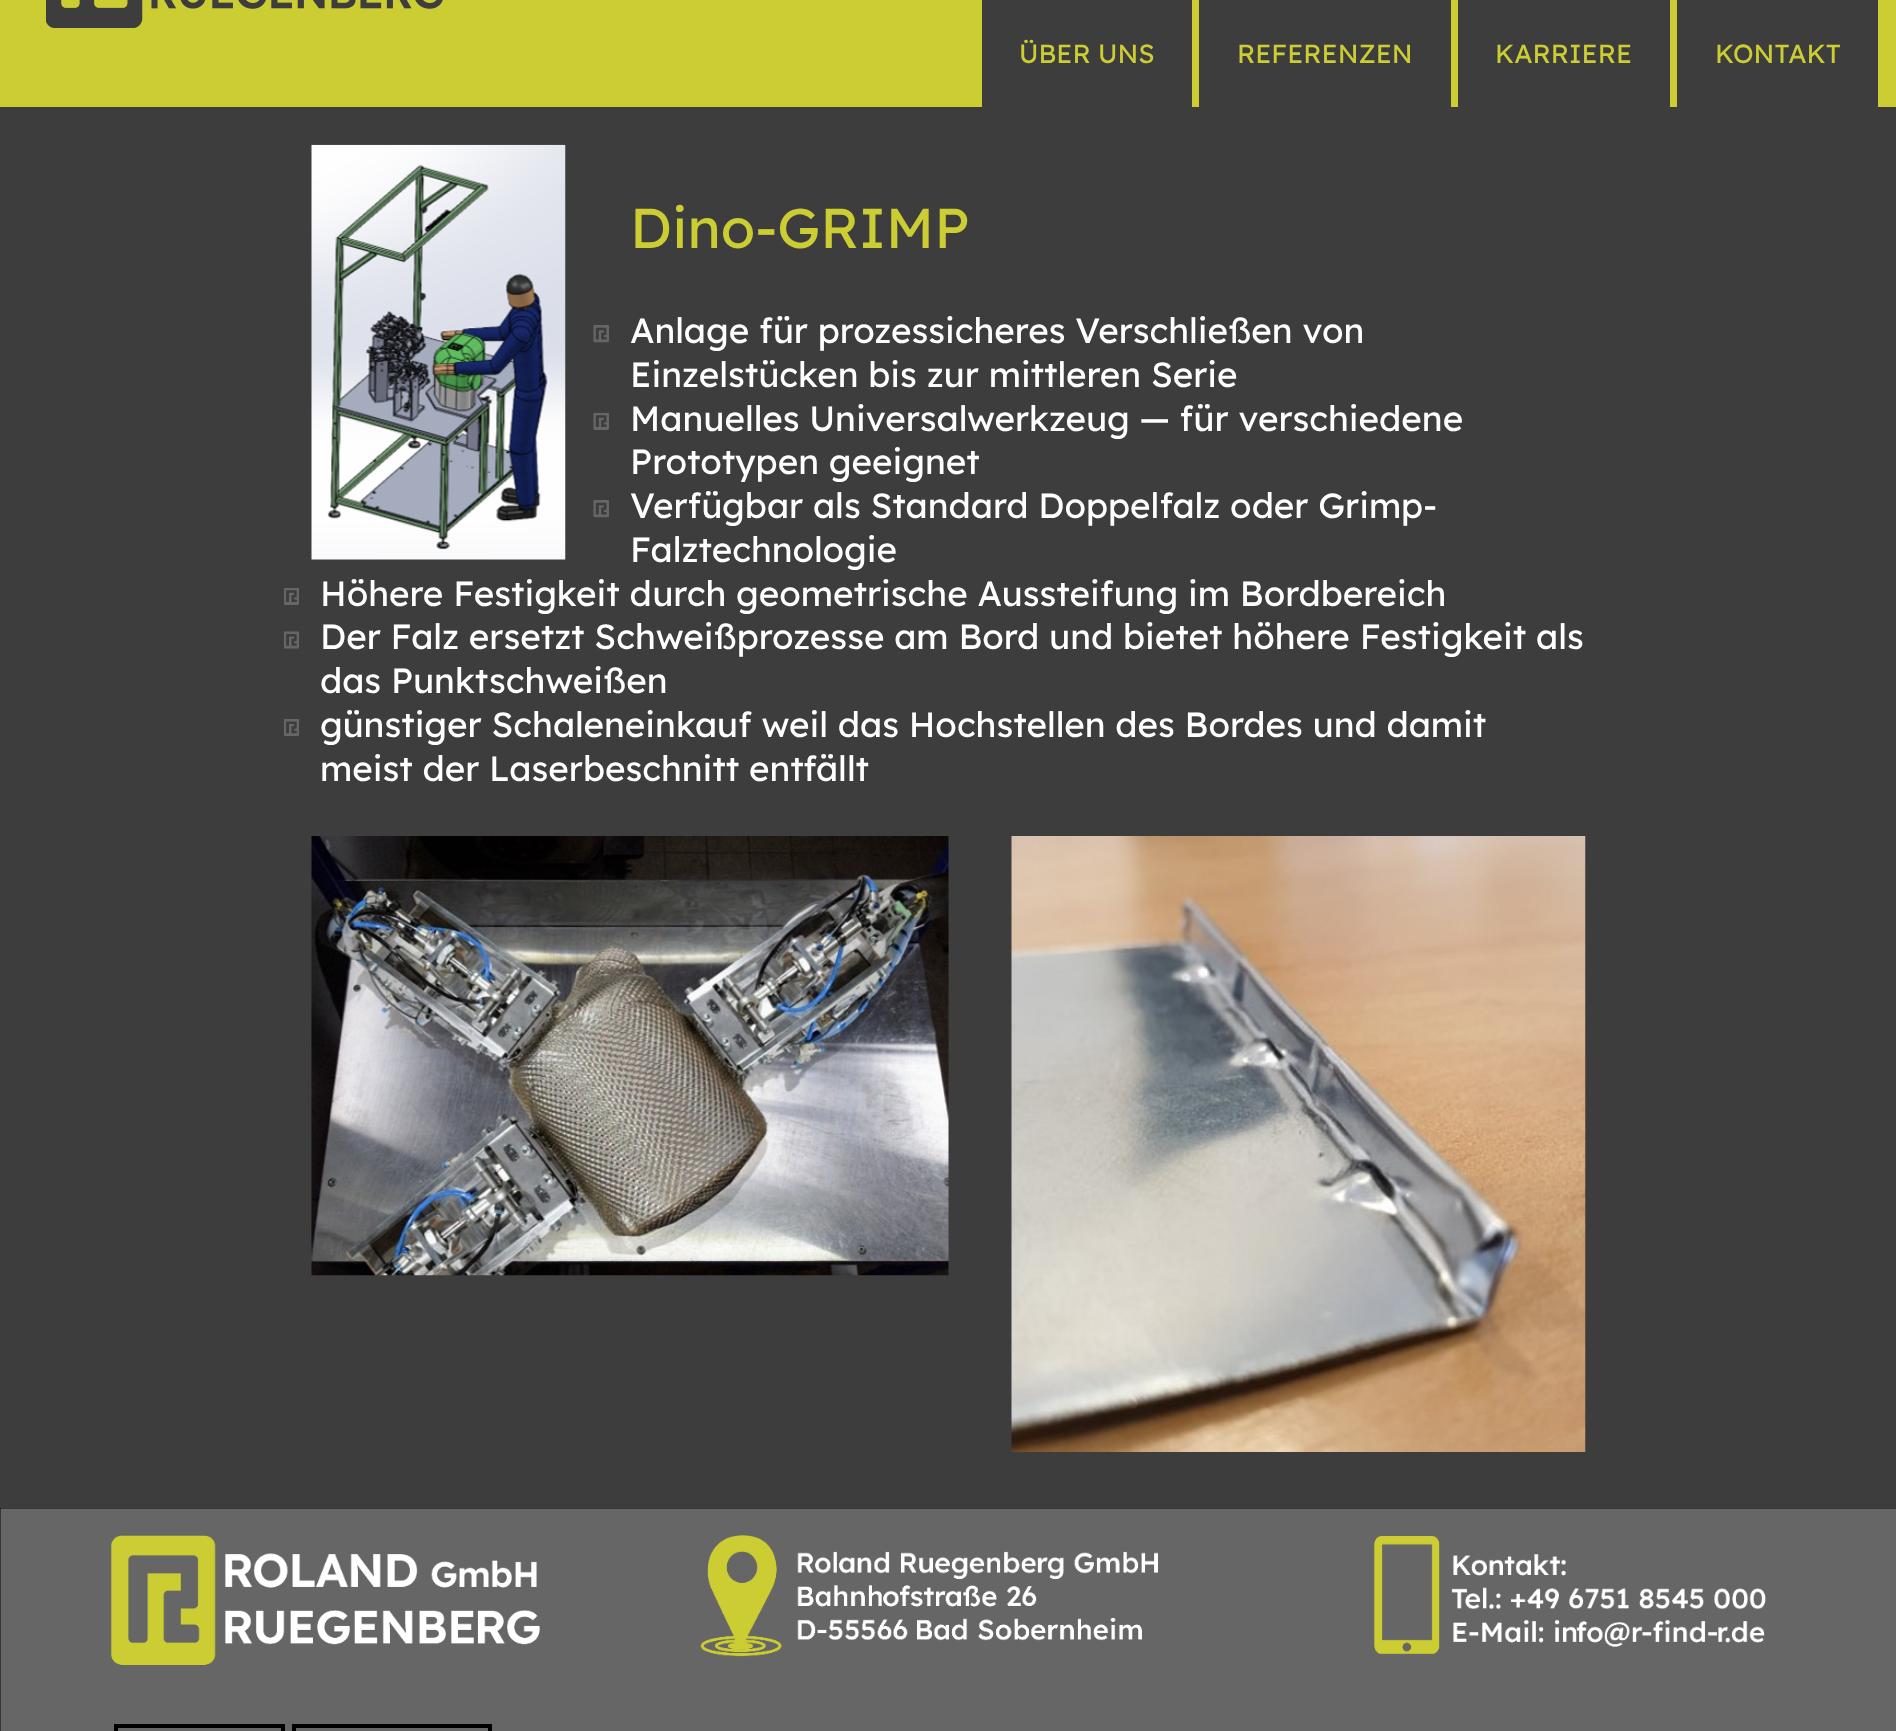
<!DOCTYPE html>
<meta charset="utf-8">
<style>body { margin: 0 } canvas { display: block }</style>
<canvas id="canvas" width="1896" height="1731"></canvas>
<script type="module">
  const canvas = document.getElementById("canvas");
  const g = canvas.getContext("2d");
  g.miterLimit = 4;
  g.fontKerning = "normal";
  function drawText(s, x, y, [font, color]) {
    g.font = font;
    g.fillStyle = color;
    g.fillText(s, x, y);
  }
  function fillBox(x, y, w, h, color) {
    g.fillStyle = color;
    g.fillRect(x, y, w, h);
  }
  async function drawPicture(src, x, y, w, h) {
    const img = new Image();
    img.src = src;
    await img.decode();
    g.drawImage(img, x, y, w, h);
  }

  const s1 = ["26.25px Lexend", "#CCCC33"];
  const s2 = ["56px Lexend", "#CCCC33"];
  const s3 = ["35px Lexend", "#FFFFFF"];

  fillBox(0, 0, 1896, 1731, "#3D3D3D");
  fillBox(0, 0, 1896, 107, "#CCCC33");
  await drawPicture("pic1.png", 46, 0, 397, 28);
  fillBox(982, 0, 210, 107, "#3D3D3D");
  drawText("ÜBER UNS", 1019, 63, s1);
  fillBox(1199, 0, 252, 107, "#3D3D3D");
  drawText("REFERENZEN", 1237, 63, s1);
  fillBox(1458, 0, 212, 107, "#3D3D3D");
  drawText("KARRIERE", 1495, 63, s1);
  fillBox(1677, 0, 201, 107, "#3D3D3D");
  drawText("KONTAKT", 1715, 63, s1);
  await drawPicture("pic2.png", 311, 144, 255, 416);
  drawText("Dino-GRIMP", 630, 248, s2);
  await drawPicture("pic3.png", 593, 325, 16, 18);
  drawText("Anlage für prozessicheres Verschließen von", 630, 343, s3);
  drawText("Einzelstücken bis zur mittleren Serie", 630, 387, s3);
  await drawPicture("pic4.png", 593, 413, 16, 17);
  drawText("Manuelles Universalwerkzeug — für verschiedene", 630, 431, s3);
  drawText("Prototypen geeignet", 630, 474, s3);
  await drawPicture("pic3.png", 593, 500, 16, 18);
  drawText("Verfügbar als Standard Doppelfalz oder Grimp-", 630, 518, s3);
  drawText("Falztechnologie", 630, 562, s3);
  await drawPicture("pic5.png", 284, 588, 15, 17);
  drawText("Höhere Festigkeit durch geometrische Aussteifung im Bordbereich", 320, 606, s3);
  await drawPicture("pic6.png", 284, 631, 15, 18);
  drawText("Der Falz ersetzt Schweißprozesse am Bord und bietet höhere Festigkeit als", 320, 649, s3);
  drawText("das Punktschweißen", 320, 693, s3);
  await drawPicture("pic7.png", 284, 719, 15, 17);
  drawText("günstiger Schaleneinkauf weil das Hochstellen des Bordes und damit", 320, 737, s3);
  drawText("meist der Laserbeschnitt entfällt", 320, 781, s3);
  await drawPicture("pic8.png", 311, 836, 638, 440);
  await drawPicture("pic9.png", 1011, 836, 575, 616);
  await drawPicture("pic10.png", 0, 1508, 1896, 223);
  g.strokeStyle = "#000000";
  g.lineWidth = 4;
  g.strokeRect(116, 1726, 167, 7);
  g.strokeRect(294, 1726, 196, 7);
</script>
